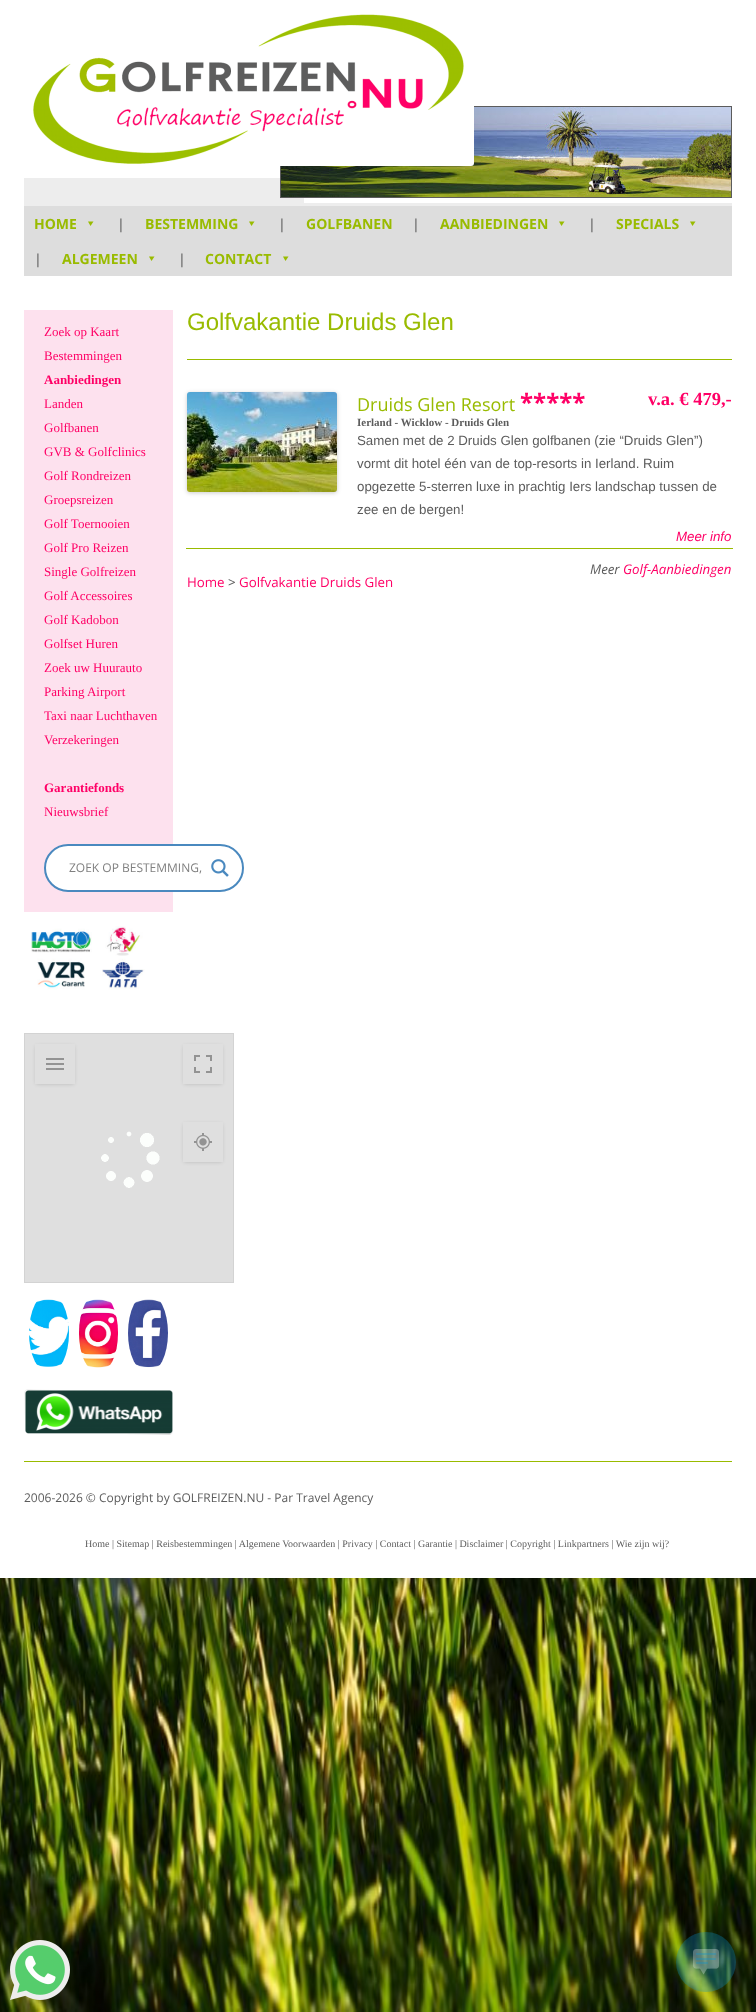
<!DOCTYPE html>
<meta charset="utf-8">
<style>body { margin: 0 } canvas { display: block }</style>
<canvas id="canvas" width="756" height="2012"></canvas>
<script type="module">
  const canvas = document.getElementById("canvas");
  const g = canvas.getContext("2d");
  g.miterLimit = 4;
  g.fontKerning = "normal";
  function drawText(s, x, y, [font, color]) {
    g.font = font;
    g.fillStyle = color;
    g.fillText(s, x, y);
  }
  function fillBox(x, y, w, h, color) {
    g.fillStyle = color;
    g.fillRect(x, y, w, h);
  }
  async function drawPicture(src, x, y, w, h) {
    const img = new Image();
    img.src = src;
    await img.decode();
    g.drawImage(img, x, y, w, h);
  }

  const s1 = ["bold 14px Open Sans", "#99BB00"];
  const s2 = ["bold 14px Open Sans", "#808080"];
  const s3 = ["13px Liberation Serif", "#FF0066"];
  const s4 = ["bold 13px Liberation Serif", "#FF0066"];
  const s5 = ["12px Open Sans", "#808080"];
  const s6 = ["24px Liberation Sans", "#99BB00"];
  const s7 = ["18px Open Sans", "#99BB00"];
  const s8 = ["bold 24px Open Sans", "#FF0066"];
  const s9 = ["bold 18.5px Liberation Serif", "#FF0066"];
  const s10 = ["bold 11px Liberation Serif", "#5C5C5C"];
  const s11 = ["13.3px Liberation Sans", "#5C5C5C"];
  const s12 = ["italic 13.3px Liberation Sans", "#FF0066"];
  const s13 = ["italic 13.3px Open Sans", "#5C5C5C"];
  const s14 = ["italic 13.3px Open Sans", "#FF0066"];
  const s15 = ["13.3px Open Sans", "#FF0066"];
  const s16 = ["13.3px Open Sans", "#5C5C5C"];
  const s17 = ["12px Open Sans", "#5C5C5C"];
  const s18 = ["10px Liberation Serif", "#5C5C5C"];

  fillBox(0, 0, 756, 2012, "#FFFFFF");
  fillBox(24, 178, 708, 28, "#EDEDED");
  g.strokeStyle = "#5C5C5C";
  g.strokeRect(280.5, 106.5, 451, 91);
  await drawPicture("pic2.png", 281, 107, 450, 90);
  await drawPicture("pic1.png", 33, 14, 441, 152);
  await drawPicture("pic3.png", 304, 198, 428, 5);
  fillBox(24, 206, 708, 70, "#DDDDDD");
  drawText("HOME", 34, 229, s1);
  g.beginPath();
  g.moveTo(93.5, 221.5);
  g.lineTo(90.5, 226);
  g.lineTo(88, 221.5);
  g.closePath();
  g.fill();
  drawText("|", 117, 229, s2);
  drawText("BESTEMMING", 145, 229, s1);
  g.beginPath();
  g.moveTo(254.5, 221.5);
  g.lineTo(251.5, 226);
  g.lineTo(249, 221.5);
  g.closePath();
  g.fill();
  drawText("|", 278, 229, s2);
  drawText("GOLFBANEN", 306, 229, s1);
  drawText("|", 412, 229, s2);
  drawText("AANBIEDINGEN", 440, 229, s1);
  g.beginPath();
  g.moveTo(564.5, 221.5);
  g.lineTo(561.5, 226);
  g.lineTo(559, 221.5);
  g.closePath();
  g.fill();
  drawText("|", 588, 229, s2);
  drawText("SPECIALS", 616, 229, s1);
  g.beginPath();
  g.moveTo(695.5, 221.5);
  g.lineTo(692.5, 226);
  g.lineTo(690, 221.5);
  g.closePath();
  g.fill();
  drawText("|", 34, 264, s2);
  drawText("ALGEMEEN", 62, 264, s1);
  g.beginPath();
  g.moveTo(154.5, 256.5);
  g.lineTo(151.5, 261);
  g.lineTo(149, 256.5);
  g.closePath();
  g.fill();
  drawText("|", 178, 264, s2);
  drawText("CONTACT", 205, 264, s1);
  g.beginPath();
  g.moveTo(288.5, 256.5);
  g.lineTo(285.5, 261);
  g.lineTo(283, 256.5);
  g.closePath();
  g.fill();
  fillBox(24, 310, 149, 602, "#FDE1EE");
  drawText("Zoek op Kaart", 44, 336, s3);
  drawText("Bestemmingen", 44, 360, s3);
  drawText("Aanbiedingen", 44, 384, s4);
  drawText("Landen", 44, 408, s3);
  drawText("Golfbanen", 44, 432, s3);
  drawText("GVB & Golfclinics", 44, 456, s3);
  drawText("Golf Rondreizen", 44, 480, s3);
  drawText("Groepsreizen", 44, 504, s3);
  drawText("Golf Toernooien", 44, 528, s3);
  drawText("Golf Pro Reizen", 44, 552, s3);
  drawText("Single Golfreizen", 44, 576, s3);
  drawText("Golf Accessoires", 44, 600, s3);
  drawText("Golf Kadobon", 44, 624, s3);
  drawText("Golfset Huren", 44, 648, s3);
  drawText("Zoek uw Huurauto", 44, 672, s3);
  drawText("Parking Airport", 44, 696, s3);
  drawText("Taxi naar Luchthaven", 44, 720, s3);
  drawText("Verzekeringen", 44, 744, s3);
  drawText("Garantiefonds", 44, 792, s4);
  drawText("Nieuwsbrief", 44, 816, s3);
  g.fillStyle = "#FFFFFF";
  g.beginPath();
  g.roundRect(45, 845, 198, 46, 23);
  g.fill();
  g.strokeStyle = "#4A89BF";
  g.lineWidth = 2;
  g.stroke();
  drawText("ZOEK OP BESTEMMING,", 69, 872, s5);
  await drawPicture("pic4.png", 211, 859, 18, 18);
  fillBox(187, 359, 545, 1, "#99BB00");
  drawText("Golfvakantie Druids Glen", 187, 330, s6);
  g.fillStyle = "rgba(0, 0, 0, 0.2)";
  g.filter = "blur(2px)";
  g.beginPath();
  g.roundRect(187, 393, 150, 100, 3);
  g.fill();
  g.filter = "none";
  await drawPicture("pic5.png", 187, 392, 150, 100);
  fillBox(186, 548, 547, 1, "#99BB00");
  drawText("Druids Glen Resort", 357, 411, s7);
  drawText("*****", 520, 411, s8);
  drawText("v.a. € 479,-", 648, 405, s9);
  drawText("Ierland - Wicklow - Druids Glen", 357, 426, s10);
  drawText("Samen met de 2 Druids Glen golfbanen (zie “Druids Glen”)", 357, 445, s11);
  drawText("vormt dit hotel één van de top-resorts in Ierland. Ruim", 357, 468, s11);
  drawText("opgezette 5-sterren luxe in prachtig Iers landschap tussen de", 357, 491, s11);
  drawText("zee en de bergen!", 357, 514, s11);
  drawText("Meer info", 676, 541, s12);
  drawText("Meer", 590, 574, s13);
  drawText("Golf-Aanbiedingen", 623, 574, s14);
  drawText("Home", 187, 587, s15);
  drawText(">", 228, 587, s16);
  drawText("Golfvakantie Druids Glen", 239, 587, s15);
  await drawPicture("pic6.png", 31, 926, 114, 64);
  g.strokeStyle = "#D3D3D3";
  g.lineWidth = 1;
  g.strokeRect(24.5, 1033.5, 209, 249);
  g.save();
  g.beginPath();
  g.moveTo(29, 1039);
  g.lineTo(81, 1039);
  g.lineTo(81, 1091);
  g.lineTo(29, 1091);
  g.closePath();
  g.moveTo(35, 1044);
  g.lineTo(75, 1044);
  g.lineTo(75, 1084);
  g.lineTo(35, 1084);
  g.closePath();
  g.clip("evenodd");
  g.fillStyle = "rgba(0, 0, 0, 0.3)";
  g.filter = "blur(2px)";
  g.beginPath();
  g.rect(36, 1046, 38, 38);
  g.fill();
  g.filter = "none";
  g.restore();
  await drawPicture("pic7.png", 46, 1058, 18, 12);
  g.save();
  g.beginPath();
  g.moveTo(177, 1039);
  g.lineTo(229, 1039);
  g.lineTo(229, 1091);
  g.lineTo(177, 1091);
  g.closePath();
  g.moveTo(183, 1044);
  g.lineTo(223, 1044);
  g.lineTo(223, 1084);
  g.lineTo(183, 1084);
  g.closePath();
  g.clip("evenodd");
  g.fillStyle = "rgba(0, 0, 0, 0.3)";
  g.filter = "blur(2px)";
  g.beginPath();
  g.rect(184, 1046, 38, 38);
  g.fill();
  g.filter = "none";
  g.restore();
  await drawPicture("pic8.png", 194, 1055, 18, 18);
  g.save();
  g.beginPath();
  g.moveTo(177, 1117);
  g.lineTo(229, 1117);
  g.lineTo(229, 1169);
  g.lineTo(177, 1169);
  g.closePath();
  g.moveTo(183, 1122);
  g.lineTo(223, 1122);
  g.lineTo(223, 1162);
  g.lineTo(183, 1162);
  g.closePath();
  g.clip("evenodd");
  g.fillStyle = "rgba(0, 0, 0, 0.3)";
  g.filter = "blur(2px)";
  g.beginPath();
  g.rect(184, 1124, 38, 38);
  g.fill();
  g.filter = "none";
  g.restore();
  await drawPicture("pic9.png", 194, 1133, 18, 18);
  fillBox(25, 1034, 208, 248, "rgba(192, 192, 192, 0.5)");
  await drawPicture("pic10.png", 101, 1131, 59, 57);
  await drawPicture("pic11.png", 29, 1299, 40, 68);
  await drawPicture("pic12.png", 79, 1299, 39, 69);
  await drawPicture("pic13.png", 128, 1299, 40, 69);
  await drawPicture("pic14.png", 24, 1389, 149, 46);
  fillBox(24, 1461, 708, 1, "#99BB00");
  drawText("2006-2026 © Copyright by GOLFREIZEN.NU - Par Travel Agency", 24, 1502, s17);
  drawText("Home | Sitemap | Reisbestemmingen | Algemene Voorwaarden | Privacy | Contact | Garantie | Disclaimer | Copyright | Linkpartners | Wie zijn wij?", 85, 1547, s18);
  await drawPicture("pic15.png", 0, 1578, 756, 434);
  await drawPicture("pic16.png", 10, 1940, 60, 60);
  g.fillStyle = "rgba(5, 150, 212, 0.3)";
  g.beginPath();
  g.arc(706, 1962, 30, 0, Math.PI * 2);
  g.fill();
  await drawPicture("pic17.png", 693, 1949, 26, 26);
</script>
